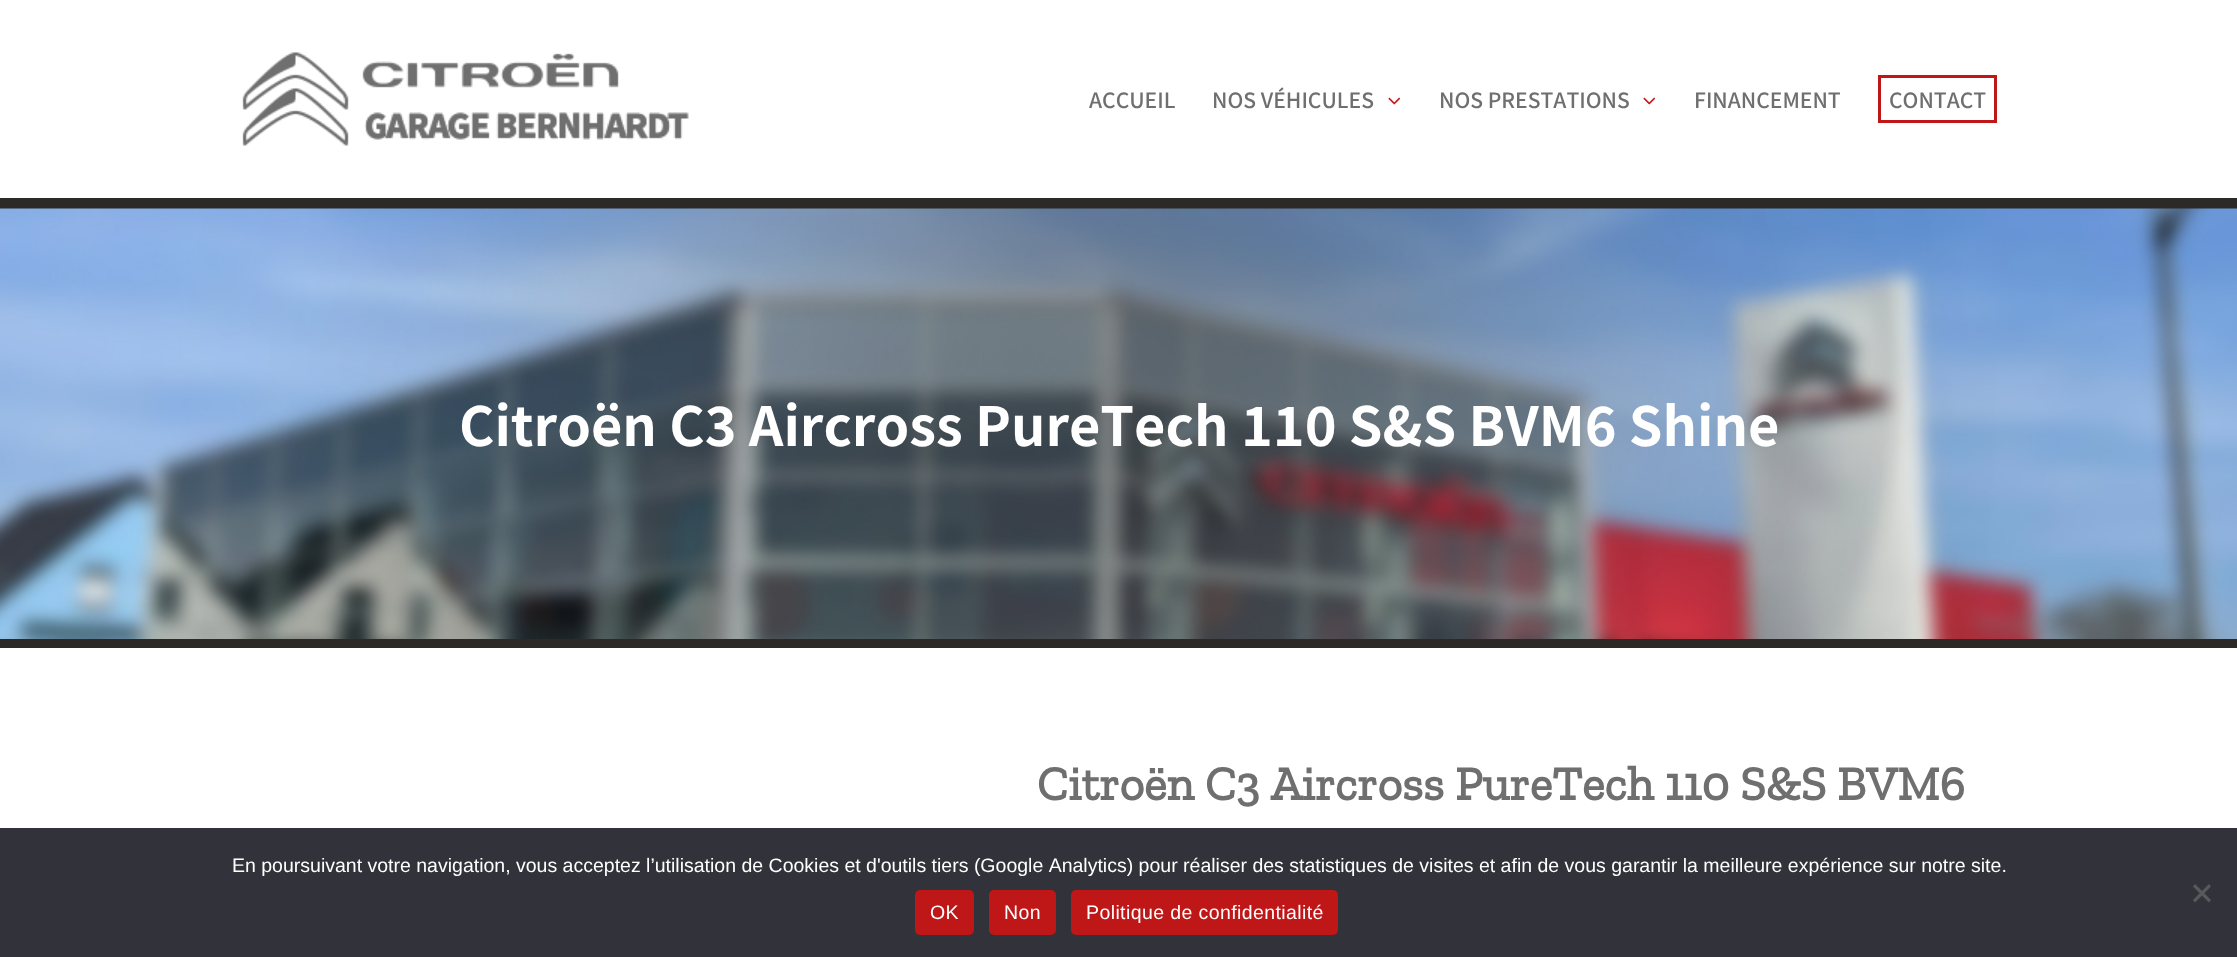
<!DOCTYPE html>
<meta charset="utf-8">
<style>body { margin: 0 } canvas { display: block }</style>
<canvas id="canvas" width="2237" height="957"></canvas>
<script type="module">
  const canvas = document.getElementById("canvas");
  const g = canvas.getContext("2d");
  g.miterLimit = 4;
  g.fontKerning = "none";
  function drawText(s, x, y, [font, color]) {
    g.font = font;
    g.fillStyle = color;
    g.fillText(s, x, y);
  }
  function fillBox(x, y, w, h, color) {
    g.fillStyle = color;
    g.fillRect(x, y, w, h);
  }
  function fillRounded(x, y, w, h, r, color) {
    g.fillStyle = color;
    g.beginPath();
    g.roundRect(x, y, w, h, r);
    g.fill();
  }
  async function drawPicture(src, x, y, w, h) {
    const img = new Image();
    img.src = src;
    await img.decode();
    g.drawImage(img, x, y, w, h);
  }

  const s1 = ["500 21px Noto Sans JP", "#706F6F"];
  const s2 = ["bold 54px Noto Sans JP", "#FFFFFF"];
  const s3 = ["bold 48px Zilla Slab", "#706F6F"];
  const s4 = ["19.5px Liberation Sans", "#FFFFFF"];

  fillBox(0, 0, 2237, 957, "#FFFFFF");
  await drawPicture("pic1.png", 242, 52, 447, 94);
  drawText("ACCUEIL", 1089, 108, s1);
  drawText("NOS VÉHICULES", 1212, 108, s1);
  await drawPicture("pic2.png", 1388, 97, 13, 8);
  drawText("NOS PRESTATIONS", 1439, 108, s1);
  await drawPicture("pic2.png", 1643, 97, 13, 8);
  drawText("FINANCEMENT", 1694, 108, s1);
  g.strokeStyle = "#BF1617";
  g.lineWidth = 3;
  g.strokeRect(1879.5, 76.5, 116, 45);
  drawText("CONTACT", 1889, 108, s1);
  fillBox(0, 198, 2237, 450, "#2B2A27");
  await drawPicture("pic3.png", 0, 208, 2237, 431);
  drawText("Citroën C3 Aircross PureTech", 459, 446, s2);
  drawText("110 S&S BVM6 Shine", 1241, 446, s2);
  drawText("Citroën C3 Aircross PureTech 110 S&S BVM6", 1037, 800, s3);
  fillBox(0, 828, 2237, 129, "#32323A");
  drawText("En poursuivant votre navigation, vous acceptez l’utilisation de Cookies et d'outils tiers (Google Analytics) pour réaliser des statistiques de visites et afin de vous garantir la meilleure expérience sur notre site.", 232, 872, s4);
  g.fillStyle = "#59595D";
  g.beginPath();
  g.moveTo(2209, 884);
  g.lineTo(2211, 886.5);
  g.lineTo(2195, 902.5);
  g.lineTo(2193, 900);
  g.closePath();
  g.fill();
  g.beginPath();
  g.moveTo(2193, 886.5);
  g.lineTo(2195, 884);
  g.lineTo(2211, 900);
  g.lineTo(2209, 902.5);
  g.closePath();
  g.fill();
  fillRounded(915, 890, 59, 45, 5, "#BF1617");
  g.letterSpacing = "0.4px";
  drawText("OK", 930, 919, s4);
  fillRounded(989, 890, 67, 45, 5, "#BF1617");
  drawText("Non", 1004, 919, s4);
  fillRounded(1071, 890, 267, 45, 5, "#BF1617");
  drawText("Politique de confidentialité", 1086, 919, s4);
</script>
